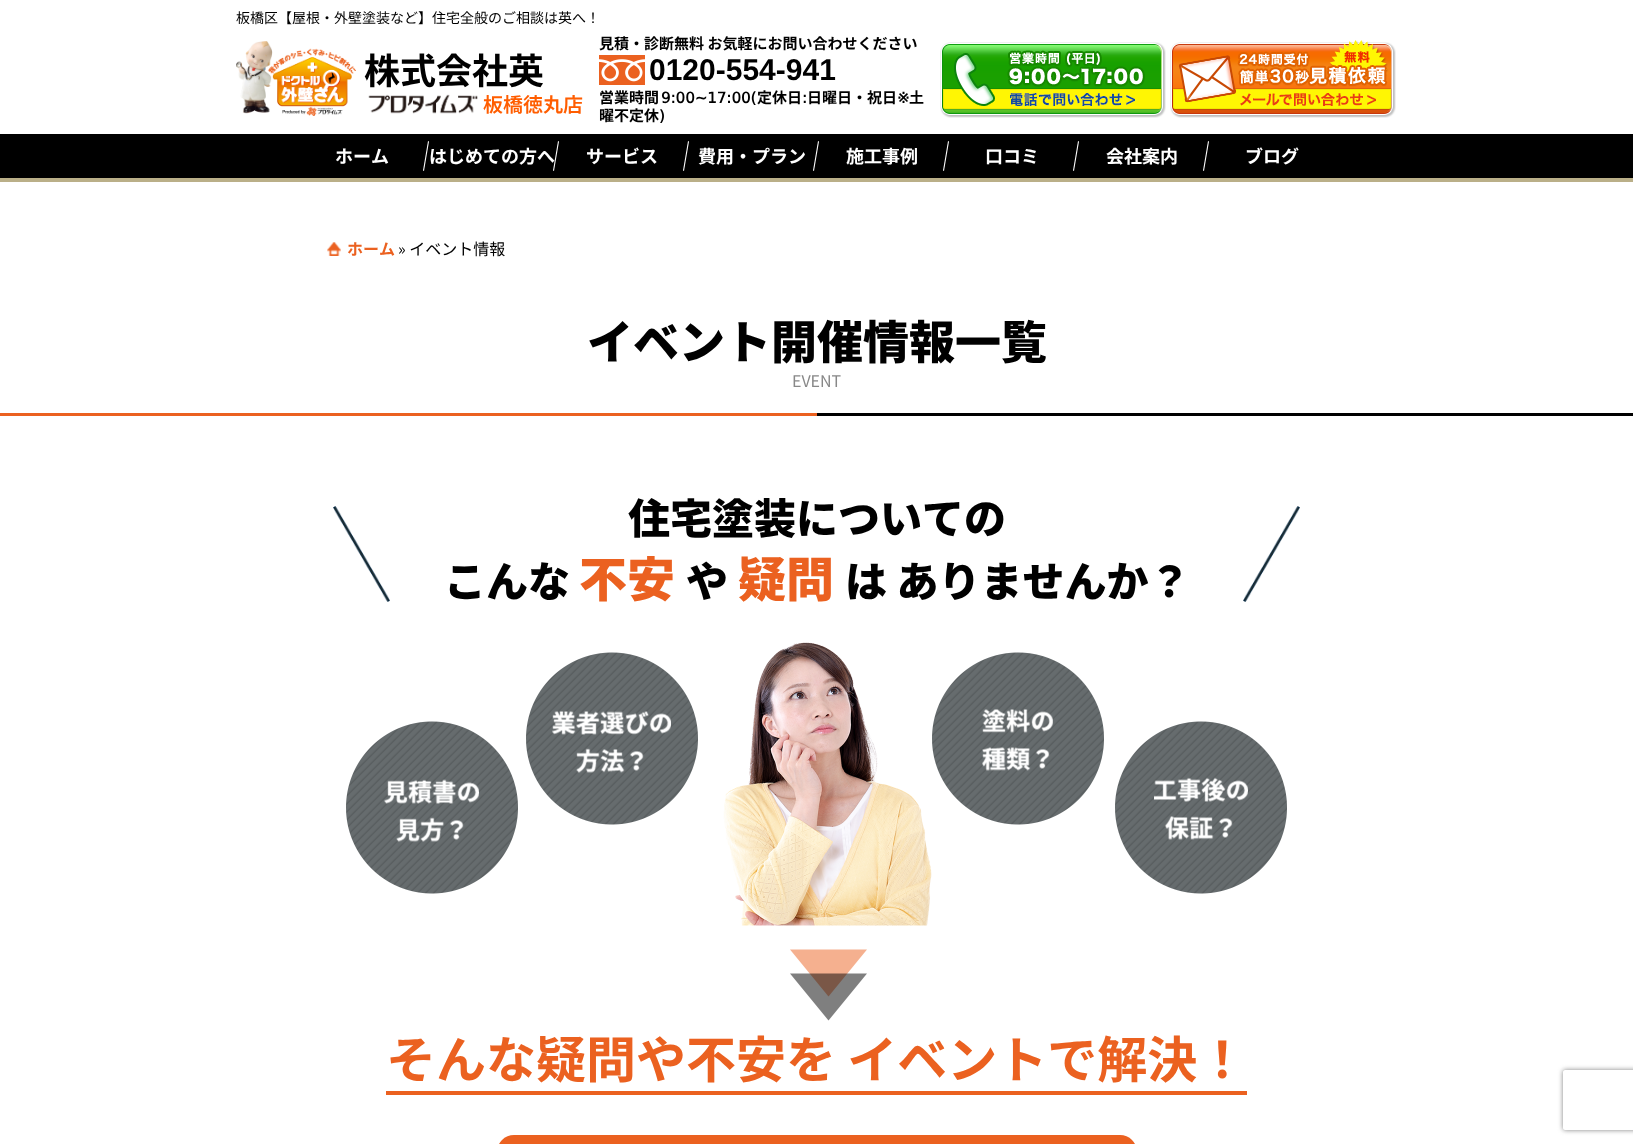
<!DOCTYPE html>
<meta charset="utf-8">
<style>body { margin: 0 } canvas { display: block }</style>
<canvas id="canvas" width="1633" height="1144"></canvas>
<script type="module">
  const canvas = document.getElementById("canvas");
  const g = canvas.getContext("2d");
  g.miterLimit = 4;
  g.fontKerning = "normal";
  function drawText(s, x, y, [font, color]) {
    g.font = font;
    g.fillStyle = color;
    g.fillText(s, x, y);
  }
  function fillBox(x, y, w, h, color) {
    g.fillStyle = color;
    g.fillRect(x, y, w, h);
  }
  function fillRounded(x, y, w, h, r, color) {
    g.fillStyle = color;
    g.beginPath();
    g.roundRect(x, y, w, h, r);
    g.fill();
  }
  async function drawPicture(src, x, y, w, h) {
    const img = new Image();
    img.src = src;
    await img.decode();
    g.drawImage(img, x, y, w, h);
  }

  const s1 = ["14px Noto Sans JP", "#000000"];
  const s2 = ["bold 36px Noto Sans JP", "#000000"];
  const s3 = ["600 20px Noto Sans JP", "#FF5D00"];
  const s4 = ["bold 15px Noto Sans JP", "#000000"];
  const s5 = ["bold 30px Liberation Sans", "#000000"];
  const s6 = ["bold 15px DejaVu Sans", "#000000"];
  const s7 = ["bold 18px Noto Sans JP", "#FFFFFF"];
  const s8 = ["bold 16px Noto Sans JP", "#EB6120"];
  const s9 = ["16px Noto Sans JP", "#000000"];
  const s10 = ["900 46px Noto Sans JP", "#000000"];
  const s11 = ["16px Noto Sans JP", "#888888"];
  const s12 = ["900 42px Noto Sans JP", "#000000"];
  const s13 = ["900 48px Noto Sans JP", "#EB6120"];
  const s14 = ["bold 50px Noto Sans JP", "#EB6120"];

  fillBox(0, 0, 1633, 1144, "#FFFFFF");
  drawText("板橋区【屋根・外壁塗装など】住宅全般のご相談は英へ！", 236, 23, s1);
  await drawPicture("pic1.png", 236, 41, 120, 75);
  drawText("株式会社英", 364, 84, s2);
  await drawPicture("pic2.png", 368, 94, 110, 20);
  drawText("板橋徳丸店", 483, 112, s3);
  drawText("見積・診断無料 お気軽にお問い合わせください", 599, 49, s4);
  await drawPicture("pic3.png", 599, 55, 46, 30);
  drawText("0120-554-941", 649, 80, s5);
  drawText("営業時間", 599, 103, s4);
  drawText("9:00∼17:00(", 661, 103, s6);
  drawText("定休日", 757, 103, s4);
  drawText(":", 802, 103, s6);
  drawText("日曜日・祝日", 807, 103, s4);
  drawText("※", 897, 103, s6);
  drawText("土", 909, 103, s4);
  drawText("曜不定休", 599, 121, s4);
  drawText(")", 659, 121, s6);
  await drawPicture("pic4.png", 940, 42, 226, 76);
  await drawPicture("pic5.png", 1170, 40, 226, 78);
  fillBox(0, 178, 1633, 4, "#BAAF88");
  fillBox(0, 134, 1633, 44, "#000000");
  drawText("ホーム", 335, 163, s7);
  g.beginPath();
  g.moveTo(428, 141);
  g.lineTo(429, 141.5);
  g.lineTo(424, 171);
  g.lineTo(423, 170.5);
  g.closePath();
  g.fill();
  drawText("はじめての方へ", 429, 163, s7);
  g.beginPath();
  g.moveTo(558, 141);
  g.lineTo(559, 141.5);
  g.lineTo(554, 171);
  g.lineTo(553, 170.5);
  g.closePath();
  g.fill();
  drawText("サービス", 586, 163, s7);
  g.beginPath();
  g.moveTo(688, 141);
  g.lineTo(689, 141.5);
  g.lineTo(684, 171);
  g.lineTo(683, 170.5);
  g.closePath();
  g.fill();
  drawText("費用・プラン", 698, 163, s7);
  g.beginPath();
  g.moveTo(818, 141);
  g.lineTo(819, 141.5);
  g.lineTo(814, 171);
  g.lineTo(813, 170.5);
  g.closePath();
  g.fill();
  drawText("施工事例", 846, 163, s7);
  g.beginPath();
  g.moveTo(948, 141);
  g.lineTo(949, 141.5);
  g.lineTo(944, 171);
  g.lineTo(943, 170.5);
  g.closePath();
  g.fill();
  drawText("口コミ", 985, 163, s7);
  g.beginPath();
  g.moveTo(1078, 141);
  g.lineTo(1079, 141.5);
  g.lineTo(1074, 171);
  g.lineTo(1073, 170.5);
  g.closePath();
  g.fill();
  drawText("会社案内", 1106, 163, s7);
  g.beginPath();
  g.moveTo(1208, 141);
  g.lineTo(1209, 141.5);
  g.lineTo(1204, 171);
  g.lineTo(1203, 170.5);
  g.closePath();
  g.fill();
  drawText("ブログ", 1245, 163, s7);
  await drawPicture("pic6.png", 327, 242, 14, 14);
  drawText("ホーム", 347, 255, s8);
  drawText("» イベント情報", 398, 255, s9);
  drawText("イベント開催情報一覧", 587, 359, s10);
  fillBox(817, 413, 816, 3, "#000000");
  drawText("EVENT", 792, 387, s11);
  fillBox(0, 413, 817, 3, "#EB6120");
  await drawPicture("pic7.png", 333, 506, 57, 96);
  drawText("住宅塗装についての", 628, 534, s12);
  drawText("こんな", 444, 597, s12);
  drawText("不安", 579, 597, s13);
  drawText("や", 686, 597, s12);
  drawText("疑問", 738, 597, s13);
  drawText("は ありませんか？", 845, 597, s12);
  await drawPicture("pic8.png", 1243, 506, 57, 96);
  await drawPicture("pic9.png", 346, 642, 941, 379);
  fillBox(386, 1091, 861, 4, "#EB6120");
  drawText("そんな疑問や不安を イベントで解決！", 386, 1078, s14);
  fillRounded(497, 1135, 640, 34, 25, "#EB6120");
  g.save();
  g.beginPath();
  g.moveTo(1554, 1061);
  g.lineTo(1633, 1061);
  g.lineTo(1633, 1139);
  g.lineTo(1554, 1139);
  g.closePath();
  g.moveTo(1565, 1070);
  g.lineTo(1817, 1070);
  g.bezierCurveTo(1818, 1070, 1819, 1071, 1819, 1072);
  g.lineTo(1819, 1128);
  g.bezierCurveTo(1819, 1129, 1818, 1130, 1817, 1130);
  g.lineTo(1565, 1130);
  g.bezierCurveTo(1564, 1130, 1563, 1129, 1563, 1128);
  g.lineTo(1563, 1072);
  g.bezierCurveTo(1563, 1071, 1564, 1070, 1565, 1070);
  g.closePath();
  g.clip("evenodd");
  g.fillStyle = "#808080";
  g.filter = "blur(2.5px)";
  g.beginPath();
  g.roundRect(1563, 1070, 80, 60, 2);
  g.fill();
  g.filter = "none";
  g.restore();
</script>
